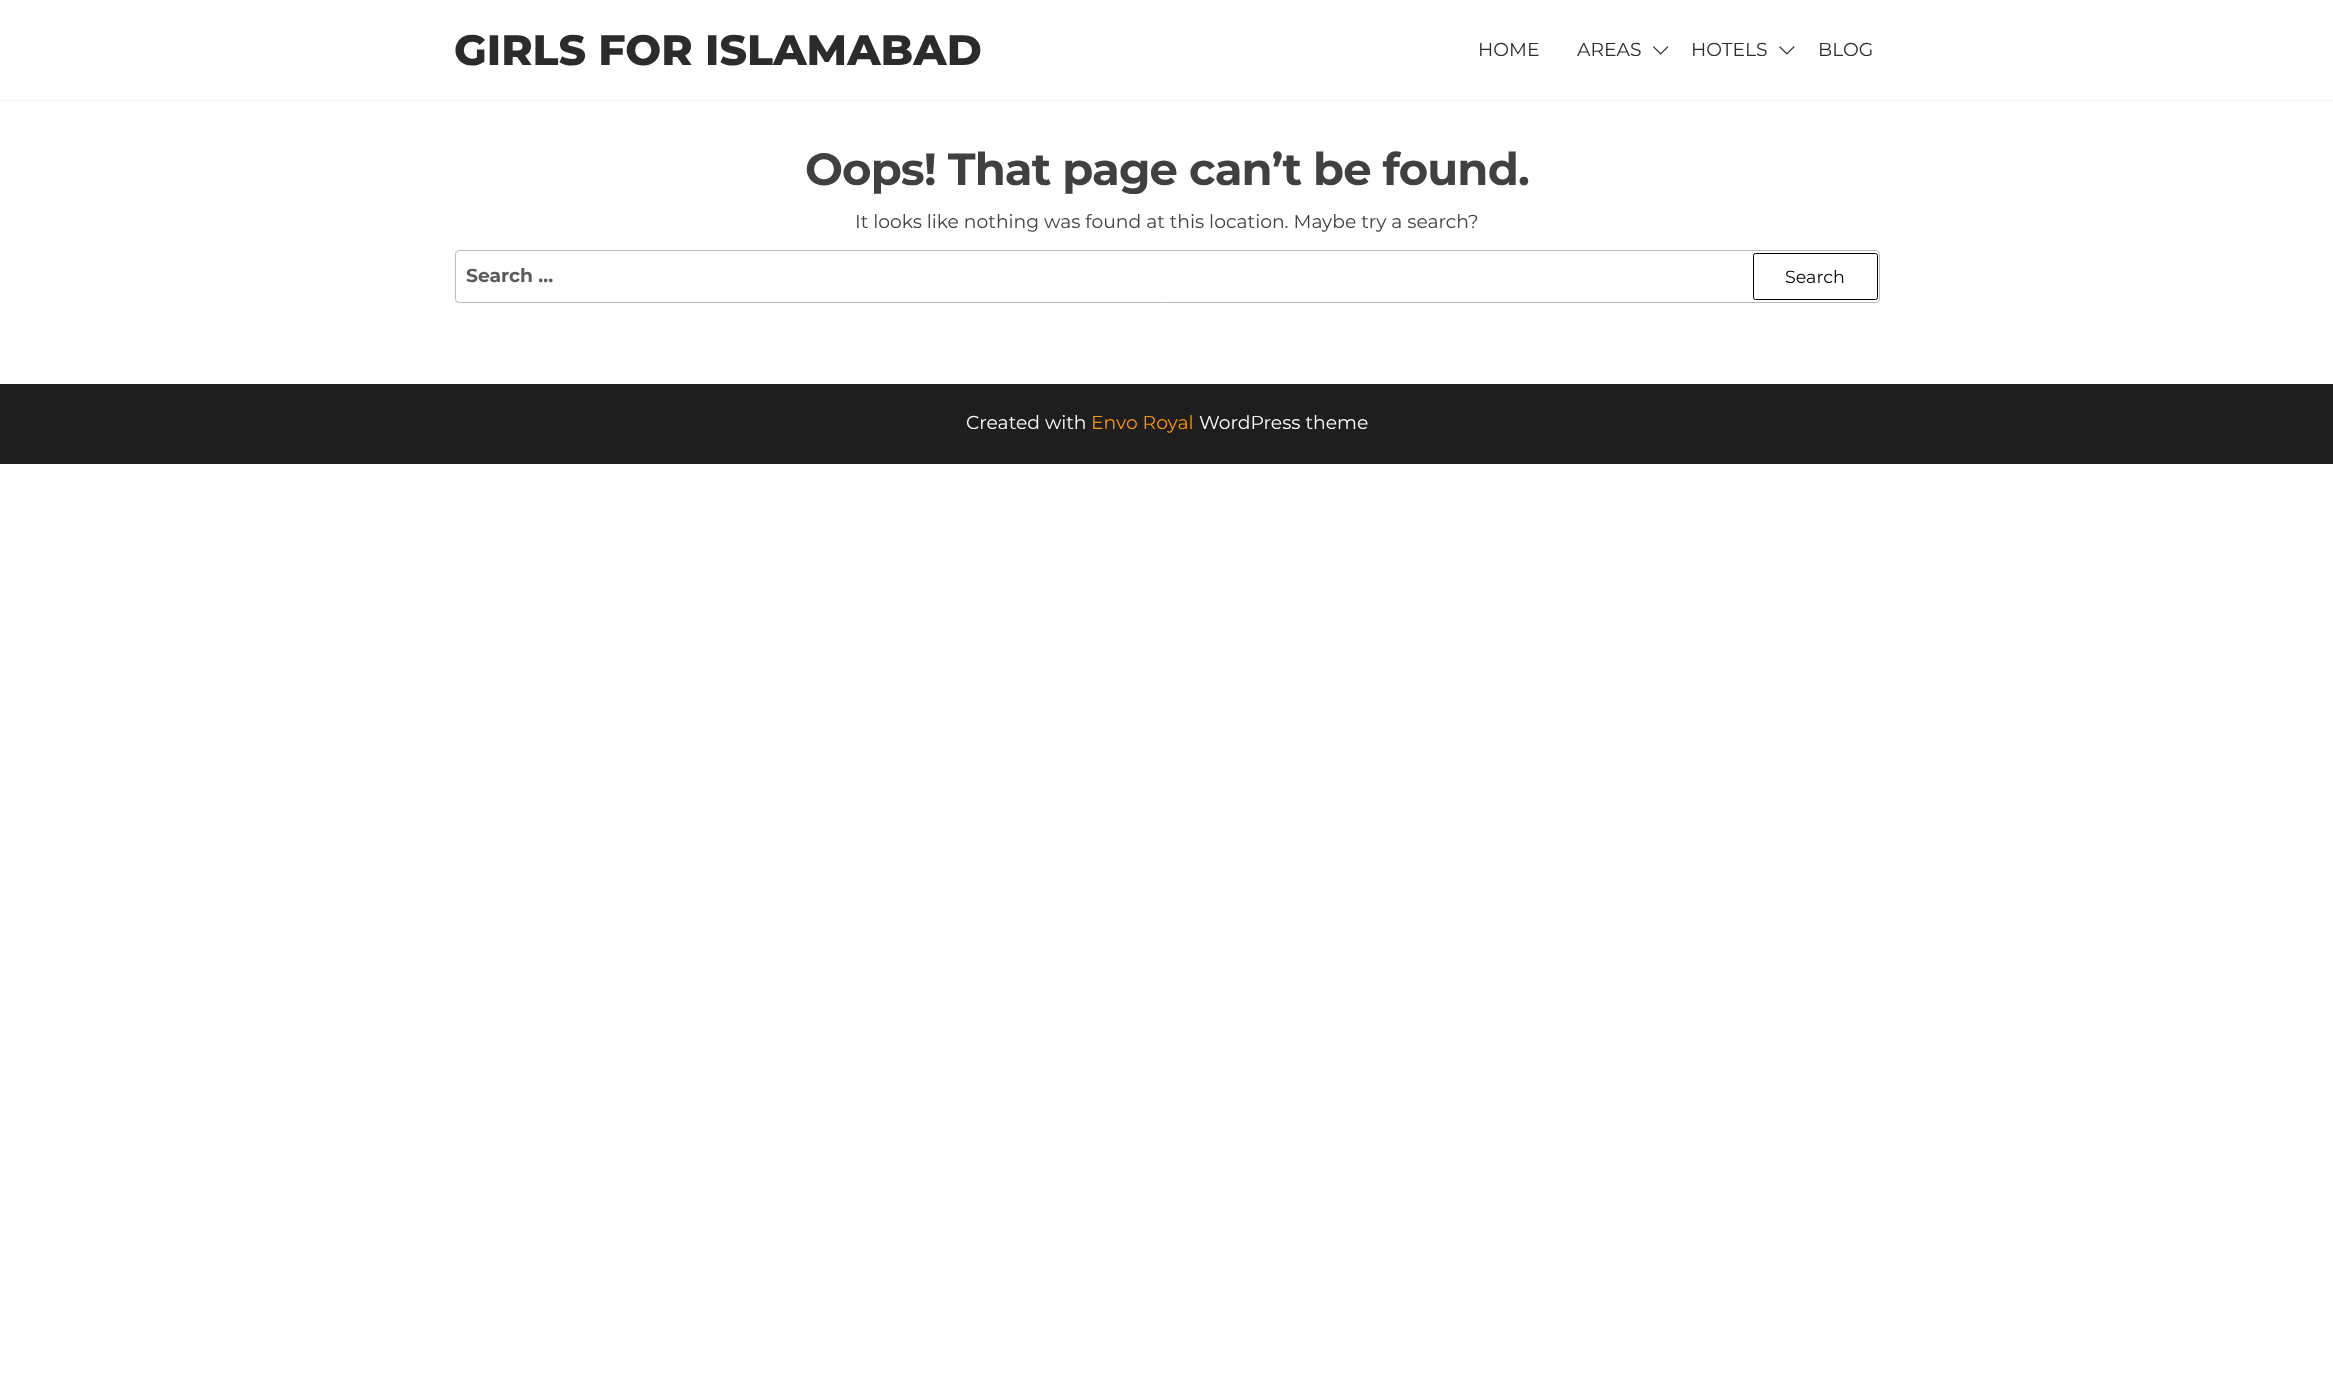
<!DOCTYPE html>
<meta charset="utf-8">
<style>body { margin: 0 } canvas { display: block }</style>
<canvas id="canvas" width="2333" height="1397"></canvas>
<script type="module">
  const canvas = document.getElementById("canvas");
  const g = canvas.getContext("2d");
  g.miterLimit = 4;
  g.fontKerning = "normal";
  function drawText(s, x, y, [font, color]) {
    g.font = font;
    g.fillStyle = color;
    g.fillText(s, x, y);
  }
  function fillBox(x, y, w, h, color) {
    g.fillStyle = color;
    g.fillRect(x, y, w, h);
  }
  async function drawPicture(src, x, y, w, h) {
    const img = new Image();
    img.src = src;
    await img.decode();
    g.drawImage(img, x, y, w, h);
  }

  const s1 = ["800 42.5px Montserrat", "#2B2B2B"];
  const s2 = ["18.75px Montserrat", "#2B2B2B"];
  const s3 = ["bold 45px Montserrat", "#404040"];
  const s4 = ["18.75px Montserrat", "#404040"];
  const s5 = ["bold 18.75px Montserrat", "#5B5B5B"];
  const s6 = ["17.5px Montserrat", "#000000"];
  const s7 = ["18.75px Montserrat", "#FFFFFF"];
  const s8 = ["18.75px Montserrat", "#FF9200"];

  fillBox(0, 0, 2333, 1397, "#FFFFFF");
  fillBox(0, 100, 2333, 1, "#F6F6F6");
  drawText("GIRLS FOR ISLAMABAD", 454, 65, s1);
  drawText("HOME", 1478, 56, s2);
  drawText("AREAS", 1577, 56, s2);
  await drawPicture("pic1.png", 1653, 46, 16, 9);
  drawText("HOTELS", 1691, 56, s2);
  await drawPicture("pic2.png", 1779, 46, 16, 9);
  drawText("BLOG", 1818, 56, s2);
  g.letterSpacing = "-0.9px";
  drawText("Oops! That page can’t be found.", 805, 185, s3);
  g.letterSpacing = "0px";
  drawText("It looks like nothing was found at this location. Maybe try a search?", 855, 228, s4);
  g.beginPath();
  g.roundRect(455.5, 250.5, 1424, 52, 3.5);
  g.strokeStyle = "#BBBBBB";
  g.stroke();
  drawText("Search …", 466, 282, s5);
  g.beginPath();
  g.roundRect(1753.5, 253.5, 124, 46, 2);
  g.strokeStyle = "#000000";
  g.stroke();
  drawText("Search", 1785, 283, s6);
  fillBox(0, 384, 2333, 80, "#1E1E1E");
  drawText("Created with", 966, 429, s7);
  drawText("Envo Royal", 1091, 429, s8);
  drawText("WordPress theme", 1199, 429, s7);
</script>
